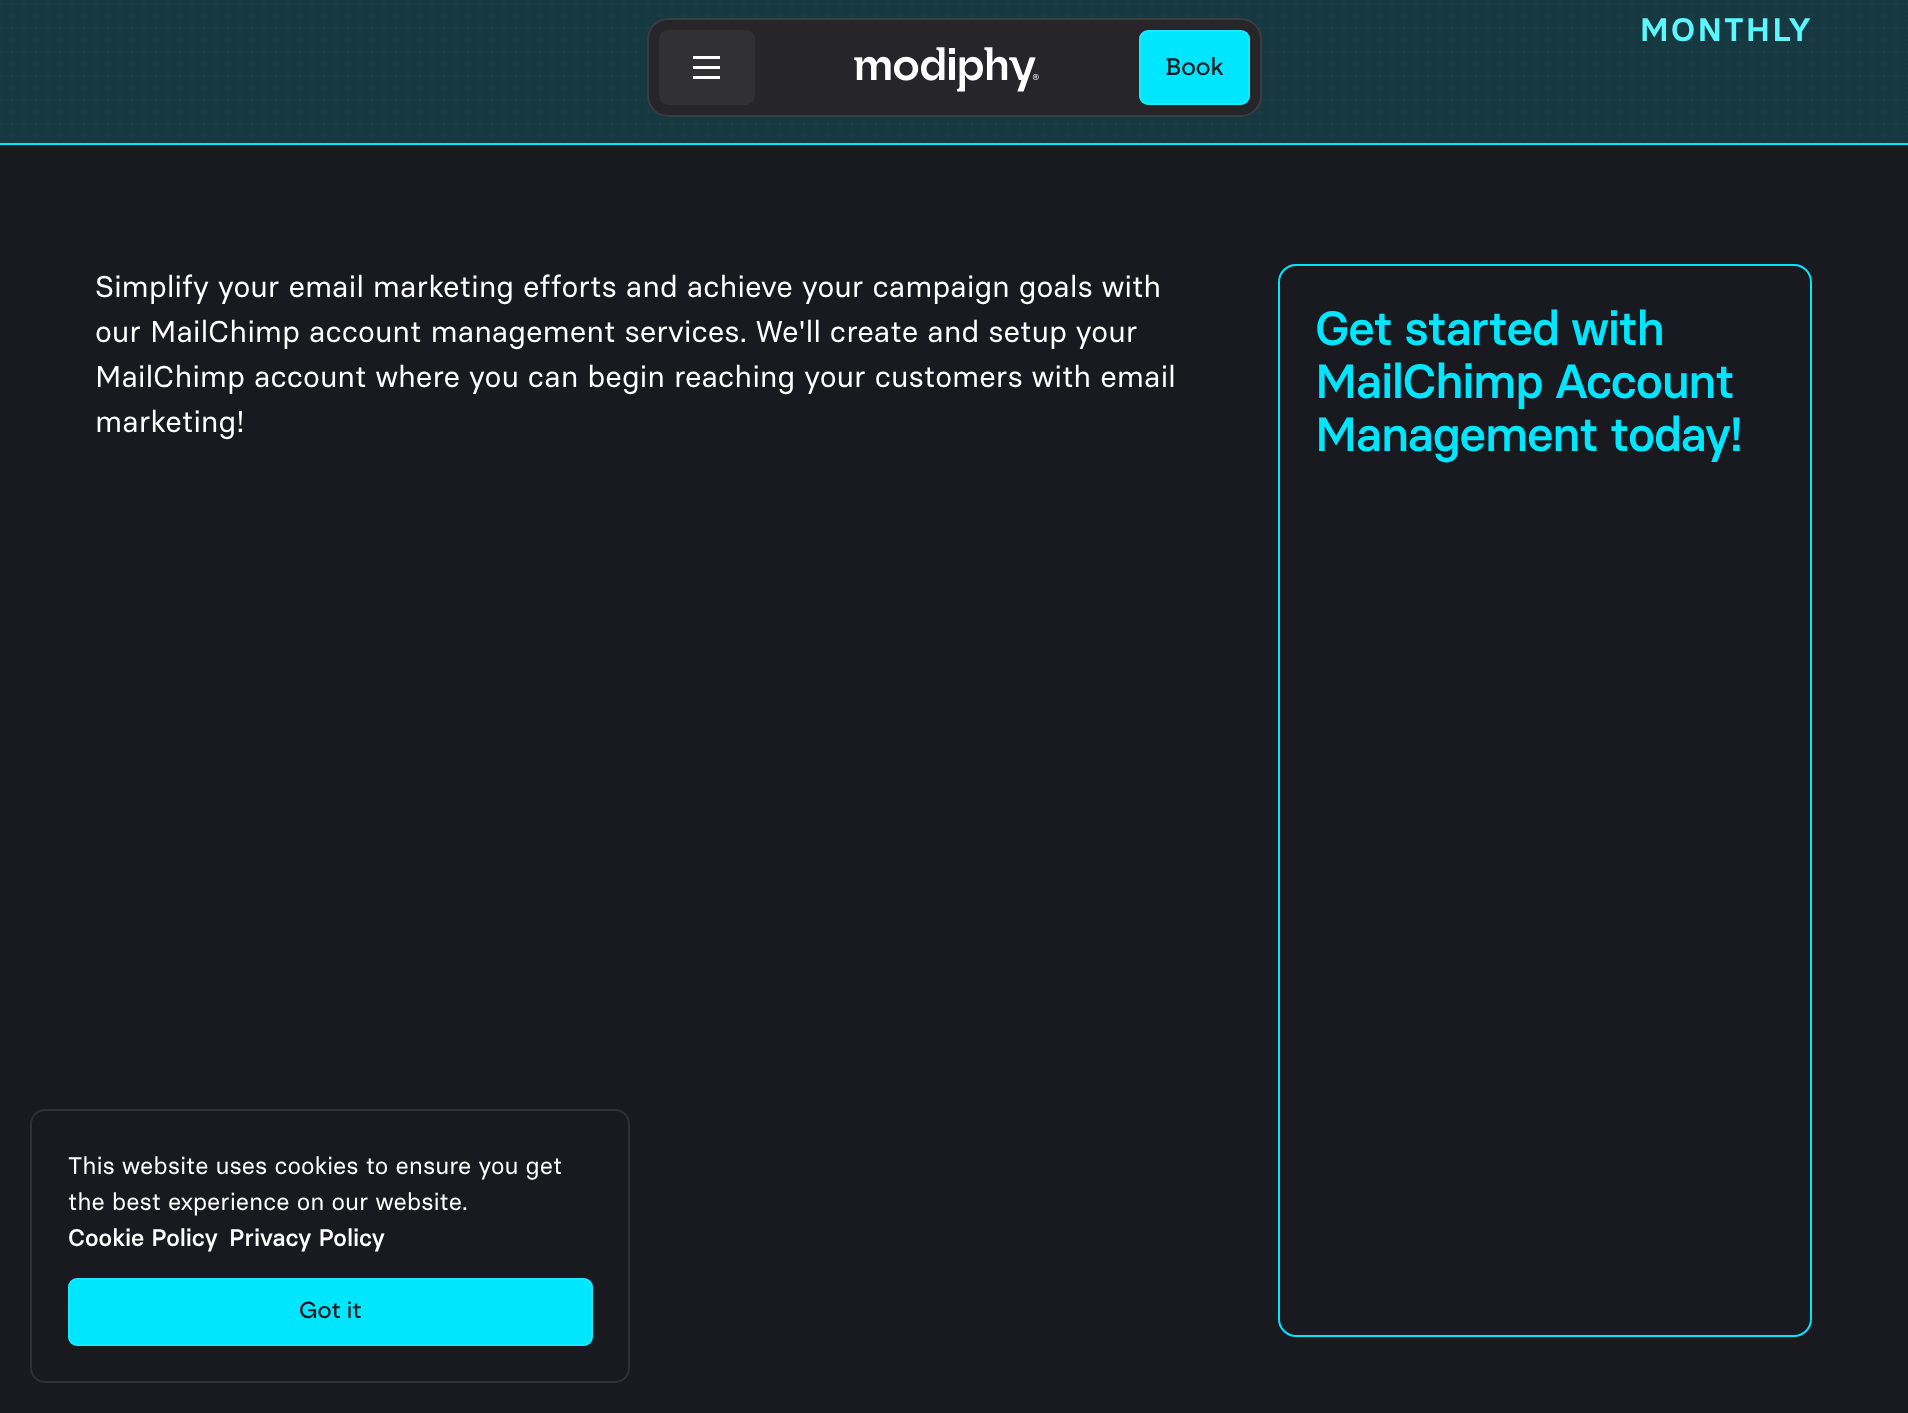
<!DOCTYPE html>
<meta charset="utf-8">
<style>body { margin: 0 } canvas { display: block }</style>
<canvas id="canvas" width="1908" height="1413"></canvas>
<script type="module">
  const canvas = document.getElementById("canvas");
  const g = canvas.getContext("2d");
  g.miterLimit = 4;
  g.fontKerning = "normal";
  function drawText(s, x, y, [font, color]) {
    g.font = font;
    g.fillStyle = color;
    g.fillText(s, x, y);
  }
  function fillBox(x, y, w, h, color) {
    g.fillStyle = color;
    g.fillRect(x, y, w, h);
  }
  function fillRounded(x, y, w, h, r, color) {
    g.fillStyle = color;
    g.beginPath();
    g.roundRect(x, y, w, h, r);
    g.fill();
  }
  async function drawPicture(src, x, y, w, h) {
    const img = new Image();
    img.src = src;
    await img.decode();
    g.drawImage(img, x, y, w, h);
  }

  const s1 = ["600 32.5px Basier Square", "#5BF7FF"];
  const s2 = ["30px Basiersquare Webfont", "#FFFFFF"];
  const s3 = ["500 48px Basier Square", "#00E6FF"];
  const s4 = ["500 24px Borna", "#191920"];
  const s5 = ["24px Basiersquare Webfont", "#FFFFFF"];
  const s6 = ["500 24px Basier Square", "#FFFFFF"];
  const s7 = ["500 23px Borna", "#191920"];

  fillBox(0, 0, 1908, 1413, "#191920");
  fillBox(0, 143, 1908, 2, "#00E6FF");
  fillBox(0, 0, 1908, 143, "#153841");
  await drawPicture("pic1.png", 0, 3, 1908, 134);
  g.letterSpacing = "2.5px";
  drawText("MONTHLY", 1640, 41, s1);
  g.letterSpacing = "0px";
  drawText("Simplify your email marketing efforts and achieve your campaign goals with", 95, 297, s2);
  drawText("our MailChimp account management services. We'll create and setup your", 95, 342, s2);
  drawText("MailChimp account where you can begin reaching your customers with email", 95, 387, s2);
  drawText("marketing!", 95, 432, s2);
  g.beginPath();
  g.roundRect(1279, 265, 532, 1071, 17);
  g.strokeStyle = "#00E6FF";
  g.lineWidth = 2;
  g.stroke();
  g.letterSpacing = "-1.25px";
  drawText("Get started with", 1315, 345, s3);
  drawText("MailChimp Account", 1315, 398, s3);
  drawText("Management today!", 1315, 451, s3);
  fillRounded(647, 18, 615, 99, 21, "#26252A");
  g.beginPath();
  g.roundRect(648, 19, 613, 97, 20);
  g.strokeStyle = "rgba(255, 255, 255, 0.1)";
  g.stroke();
  fillRounded(659, 30, 96, 75, 9, "#313035");
  fillBox(693, 56, 27, 3, "#FFFFFF");
  fillBox(693, 66, 27, 3, "#FFFFFF");
  fillBox(693, 76, 27, 3, "#FFFFFF");
  await drawPicture("pic2.png", 854, 47, 185, 45);
  fillRounded(1139, 30, 111, 75, 9, "#00E6FF");
  g.beginPath();
  g.roundRect(1140, 31, 109, 73, 8);
  g.stroke();
  g.letterSpacing = "0px";
  drawText("Book", 1165, 75, s4);
  g.beginPath();
  g.roundRect(31, 1110, 598, 272, 14);
  g.strokeStyle = "#303036";
  g.stroke();
  drawText("This website uses cookies to ensure you get", 68, 1174, s5);
  drawText("the best experience on our website.", 68, 1210, s5);
  drawText("Cookie Policy", 68, 1246, s6);
  drawText("Privacy Policy", 229, 1246, s6);
  fillRounded(68, 1278, 525, 68, 9, "#00E6FF");
  g.beginPath();
  g.roundRect(69, 1279, 523, 66, 8);
  g.strokeStyle = "rgba(255, 255, 255, 0.1)";
  g.stroke();
  drawText("Got it", 299, 1318, s7);
</script>
